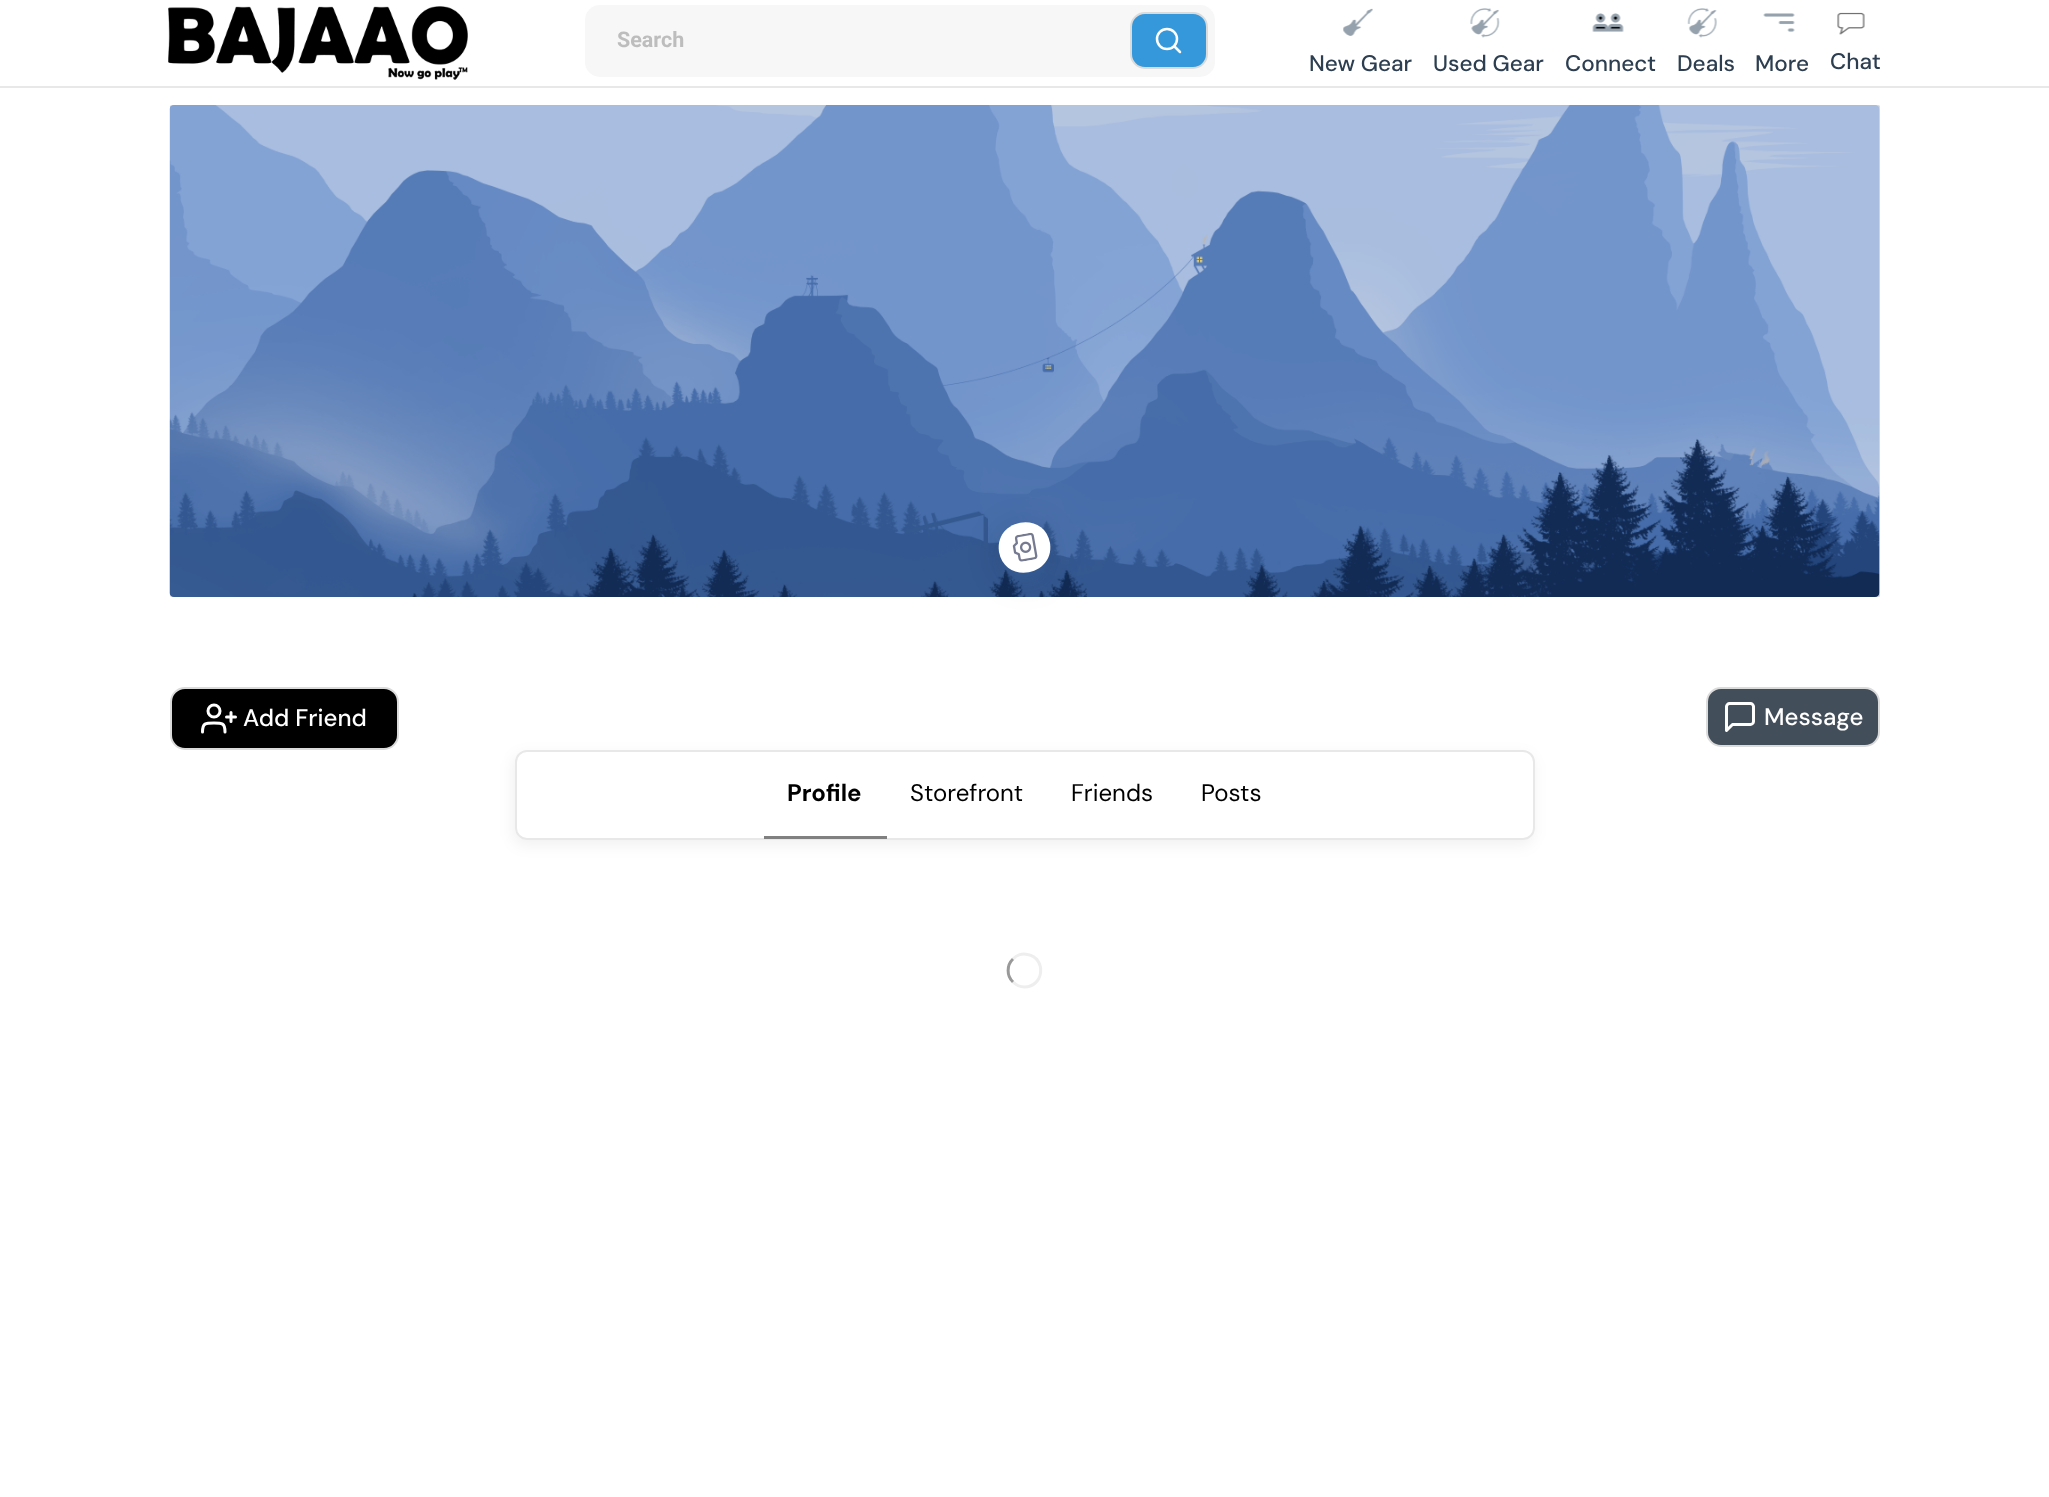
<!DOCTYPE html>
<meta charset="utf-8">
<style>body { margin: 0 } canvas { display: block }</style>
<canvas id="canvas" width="2049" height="1497"></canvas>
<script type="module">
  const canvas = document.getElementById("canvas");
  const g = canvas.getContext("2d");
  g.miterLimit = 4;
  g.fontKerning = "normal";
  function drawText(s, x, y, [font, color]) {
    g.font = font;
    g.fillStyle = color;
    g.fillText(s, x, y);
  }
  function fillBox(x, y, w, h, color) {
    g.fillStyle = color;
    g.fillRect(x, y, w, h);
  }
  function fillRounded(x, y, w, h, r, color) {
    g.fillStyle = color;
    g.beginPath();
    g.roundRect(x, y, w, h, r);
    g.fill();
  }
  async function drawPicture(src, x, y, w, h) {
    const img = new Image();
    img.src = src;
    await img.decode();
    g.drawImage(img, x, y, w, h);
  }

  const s1 = ["bold 21.5px Roboto", "#BDBDBD"];
  const s2 = ["500 22.5px DM Sans", "#2C3E50"];
  const s3 = ["500 24px DM Sans", "#FFFFFF"];
  const s4 = ["bold 24px DM Sans", "#000000"];
  const s5 = ["24px DM Sans", "#000000"];

  fillBox(0, 0, 2049, 1497, "#FFFFFF");
  fillBox(0, 86, 2049, 2, "#E8E8E8");
  await drawPicture("pic1.png", 168, 6, 300, 74);
  fillRounded(585, 5, 630, 72, 15, "#F7F7F7");
  drawText("Search", 617, 47, s1);
  g.fillStyle = "#3498DB";
  g.beginPath();
  g.roundRect(1131, 13, 76, 55, 14);
  g.fill();
  g.strokeStyle = "#DBDBDB";
  g.lineWidth = 2;
  g.stroke();
  g.beginPath();
  g.arc(1167, 39, 10, 0, Math.PI * 2);
  g.strokeStyle = "#FFFFFF";
  g.lineWidth = 2.5;
  g.stroke();
  g.beginPath();
  g.moveTo(1180, 52);
  g.lineTo(1174.5, 46.5);
  g.lineCap = "round";
  g.lineJoin = "round";
  g.stroke();
  await drawPicture("pic2.png", 1343, 8, 30, 28);
  drawText("New Gear", 1309, 71, s2);
  await drawPicture("pic3.png", 1470, 8, 30, 30);
  drawText("Used Gear", 1433, 71, s2);
  await drawPicture("pic4.png", 1592, 13, 32, 19);
  drawText("Connect", 1565, 71, s2);
  await drawPicture("pic5.png", 1687, 8, 30, 30);
  drawText("Deals", 1677, 71, s2);
  await drawPicture("pic6.png", 1763, 13, 32, 19);
  drawText("More", 1755, 71, s2);
  await drawPicture("pic7.png", 1837, 12, 28, 23);
  drawText("Chat", 1830, 69, s2);
  await drawPicture("pic8.png", 169, 105, 1711, 492);
  fillRounded(170, 105, 1710, 492, 1.5, "rgba(57, 58, 79, 0.18)");
  g.fillStyle = "rgba(85, 150, 230, 0.2)";
  g.filter = "blur(7.5px)";
  g.beginPath();
  g.roundRect(1007, 542, 36, 36, 18);
  g.fill();
  g.filter = "none";
  g.fillStyle = "rgba(0, 0, 0, 0.12)";
  g.filter = "blur(17.5px)";
  g.beginPath();
  g.roundRect(999, 528, 51, 51, 25.5);
  g.fill();
  g.filter = "none";
  g.fillStyle = "#FFFFFF";
  g.beginPath();
  g.moveTo(999, 552);
  g.bezierCurveTo(994, 519, 1044, 510, 1050, 543);
  g.bezierCurveTo(1055, 576, 1005, 585, 999, 552);
  g.closePath();
  g.fill();
  await drawPicture("pic9.png", 1012, 532, 26, 30);
  g.fillStyle = "#000000";
  g.beginPath();
  g.roundRect(171, 688, 227, 61, 14);
  g.fill();
  g.strokeStyle = "#DBDBDB";
  g.lineWidth = 2;
  g.lineJoin = "miter";
  g.stroke();
  g.beginPath();
  g.moveTo(225, 732);
  g.bezierCurveTo(225, 723, 222, 723, 214, 723);
  g.bezierCurveTo(205.5, 723, 202.5, 723, 202.5, 732);
  g.strokeStyle = "#FFFFFF";
  g.lineWidth = 3;
  g.lineJoin = "round";
  g.stroke();
  g.beginPath();
  g.arc(214, 711, 6, 0, Math.PI * 2);
  g.stroke();
  g.beginPath();
  g.moveTo(231, 712.5);
  g.lineTo(231, 721.5);
  g.moveTo(235.5, 717);
  g.lineTo(226.5, 717);
  g.stroke();
  drawText("Add Friend", 243, 726, s3);
  g.fillStyle = "#424E5A";
  g.beginPath();
  g.roundRect(1707, 688, 172, 58, 14);
  g.fill();
  g.strokeStyle = "#DBDBDB";
  g.lineWidth = 2;
  g.lineJoin = "miter";
  g.stroke();
  g.beginPath();
  g.moveTo(1753.5, 721.5);
  g.bezierCurveTo(1753.5, 723, 1752, 724.5, 1750.5, 724.5);
  g.lineTo(1732.5, 724.5);
  g.lineTo(1726.5, 730.5);
  g.lineTo(1726.5, 706.5);
  g.bezierCurveTo(1726.5, 705, 1728, 703.5, 1729.5, 703.5);
  g.lineTo(1750.5, 703.5);
  g.bezierCurveTo(1752, 703.5, 1753.5, 705, 1753.5, 706.5);
  g.closePath();
  g.strokeStyle = "#FFFFFF";
  g.lineWidth = 3;
  g.lineJoin = "round";
  g.stroke();
  drawText("Message", 1764, 725, s3);
  g.save();
  g.beginPath();
  g.moveTo(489, 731);
  g.lineTo(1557, 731);
  g.lineTo(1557, 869);
  g.lineTo(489, 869);
  g.closePath();
  g.moveTo(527, 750);
  g.lineTo(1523, 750);
  g.bezierCurveTo(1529.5, 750, 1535, 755.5, 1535, 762);
  g.lineTo(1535, 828);
  g.bezierCurveTo(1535, 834.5, 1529.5, 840, 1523, 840);
  g.lineTo(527, 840);
  g.bezierCurveTo(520.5, 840, 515, 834.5, 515, 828);
  g.lineTo(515, 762);
  g.bezierCurveTo(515, 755.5, 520.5, 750, 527, 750);
  g.closePath();
  g.clip("evenodd");
  g.fillStyle = "rgba(0, 0, 0, 0.06)";
  g.filter = "blur(7.5px)";
  g.beginPath();
  g.roundRect(513, 755, 1020, 90, 12);
  g.fill();
  g.filter = "none";
  g.restore();
  g.beginPath();
  g.roundRect(516, 751, 1018, 88, 11);
  g.strokeStyle = "#E8E8E8";
  g.lineWidth = 2;
  g.lineJoin = "miter";
  g.stroke();
  fillBox(764, 836, 123, 3, "#808080");
  drawText("Profile", 787, 801, s4);
  drawText("Storefront", 910, 801, s5);
  drawText("Friends", 1071, 801, s5);
  drawText("Posts", 1201, 801, s5);
  g.beginPath();
  g.moveTo(1013, 959);
  g.bezierCurveTo(1016.5, 955, 1022.5, 953, 1027.5, 954.5);
  g.bezierCurveTo(1047, 958, 1044, 987, 1024.5, 987);
  g.bezierCurveTo(1020, 987, 1016, 985, 1013, 982);
  g.strokeStyle = "#EEEEEE";
  g.lineWidth = 3;
  g.lineCap = "butt";
  g.stroke();
  g.beginPath();
  g.moveTo(1013, 982);
  g.bezierCurveTo(1006.5, 976, 1006.5, 965, 1013, 959);
  g.strokeStyle = "#999999";
  g.stroke();
</script>
